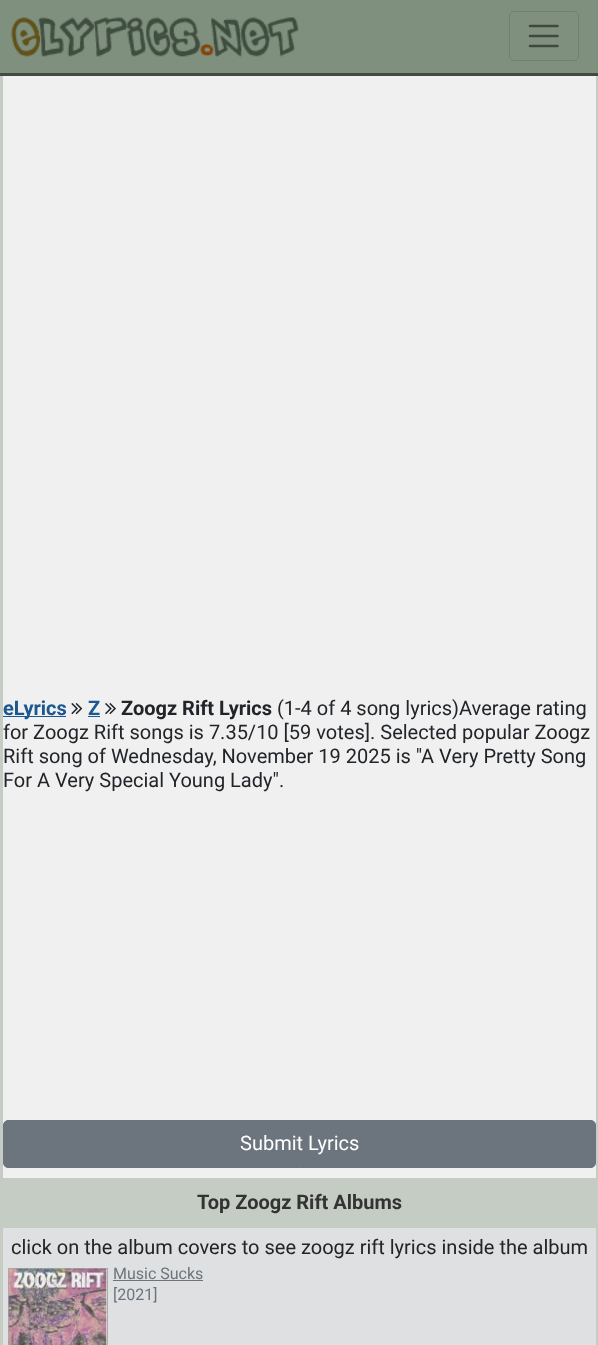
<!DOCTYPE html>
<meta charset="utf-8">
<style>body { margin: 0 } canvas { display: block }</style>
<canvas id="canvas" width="598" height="1345"></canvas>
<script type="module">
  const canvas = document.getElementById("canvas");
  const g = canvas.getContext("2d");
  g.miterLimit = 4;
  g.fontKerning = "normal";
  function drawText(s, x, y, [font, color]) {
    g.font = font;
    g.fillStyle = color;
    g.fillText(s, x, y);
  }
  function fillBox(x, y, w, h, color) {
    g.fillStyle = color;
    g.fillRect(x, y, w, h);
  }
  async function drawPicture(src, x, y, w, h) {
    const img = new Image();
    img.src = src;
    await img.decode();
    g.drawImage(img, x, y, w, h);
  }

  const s1 = ["bold 20px Roboto", "#1B5790"];
  const s2 = ["bold 20px Roboto", "#212529"];
  const s3 = ["20px Roboto", "#212529"];
  const s4 = ["20px Roboto", "#FFFFFF"];
  const s5 = ["bold 20px Roboto", "#333333"];
  const s6 = ["16px Roboto", "#6C757D"];

  fillBox(0, 0, 598, 1345, "#F0F0F0");
  fillBox(0, 0, 598, 73, "#7F907F");
  fillBox(596, 75, 2, 1270, "#C4CCC4");
  fillBox(0, 75, 3, 1270, "#C4CCC4");
  fillBox(0, 73, 598, 3, "#3F4D3F");
  await drawPicture("pic1.png", 11, 17, 288, 40);
  g.beginPath();
  g.roundRect(509.5, 11.5, 69, 49, 4.5);
  g.strokeStyle = "#728272";
  g.stroke();
  g.beginPath();
  g.moveTo(530, 26);
  g.lineTo(557.5, 26);
  g.moveTo(530, 36);
  g.lineTo(557.5, 36);
  g.moveTo(530, 46);
  g.lineTo(557.5, 46);
  g.strokeStyle = "#404840";
  g.lineWidth = 2.5;
  g.lineCap = "round";
  g.stroke();
  fillBox(3, 716, 63, 1, "#1B5790");
  drawText("eLyrics", 3, 715, s1);
  await drawPicture("pic2.png", 71, 703, 12, 12);
  drawText("Z", 88, 715, s1);
  fillBox(88, 716, 12, 1, "#1B5790");
  await drawPicture("pic3.png", 105, 703, 11, 12);
  drawText("Zoogz Rift Lyrics", 121, 715, s2);
  drawText("(1-4 of 4 song lyrics)Average rating", 277, 715, s3);
  drawText("for Zoogz Rift songs is 7.35/10 [59 votes]. Selected popular Zoogz", 3, 739, s3);
  drawText("Rift song of Wednesday, November 19 2025 is \"A Very Pretty Song", 3, 763, s3);
  drawText("For A Very Special Young Lady\".", 3, 787, s3);
  g.fillStyle = "#6C757D";
  g.beginPath();
  g.roundRect(3.5, 1120.5, 592, 47, 4.5);
  g.fill();
  g.strokeStyle = "#6C757D";
  g.lineWidth = 1;
  g.stroke();
  drawText("Submit Lyrics", 240, 1150, s4);
  fillBox(3, 1228, 593, 117, "#DEE0E1");
  fillBox(3, 1178, 593, 50, "#C4CCC4");
  drawText("Top Zoogz Rift Albums", 197, 1209, s5);
  drawText("click on the album covers to see zoogz rift lyrics inside the album", 11, 1254, s3);
  g.strokeStyle = "#ACAEA6";
  g.strokeRect(8.5, 1268.5, 99, 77);
  await drawPicture("pic4.png", 8, 1268, 99, 77);
  drawText("Music Sucks", 113, 1279, s6);
  fillBox(113, 1280, 90, 1, "#6C757D");
  drawText("[2021]", 113, 1300, s6);
</script>
